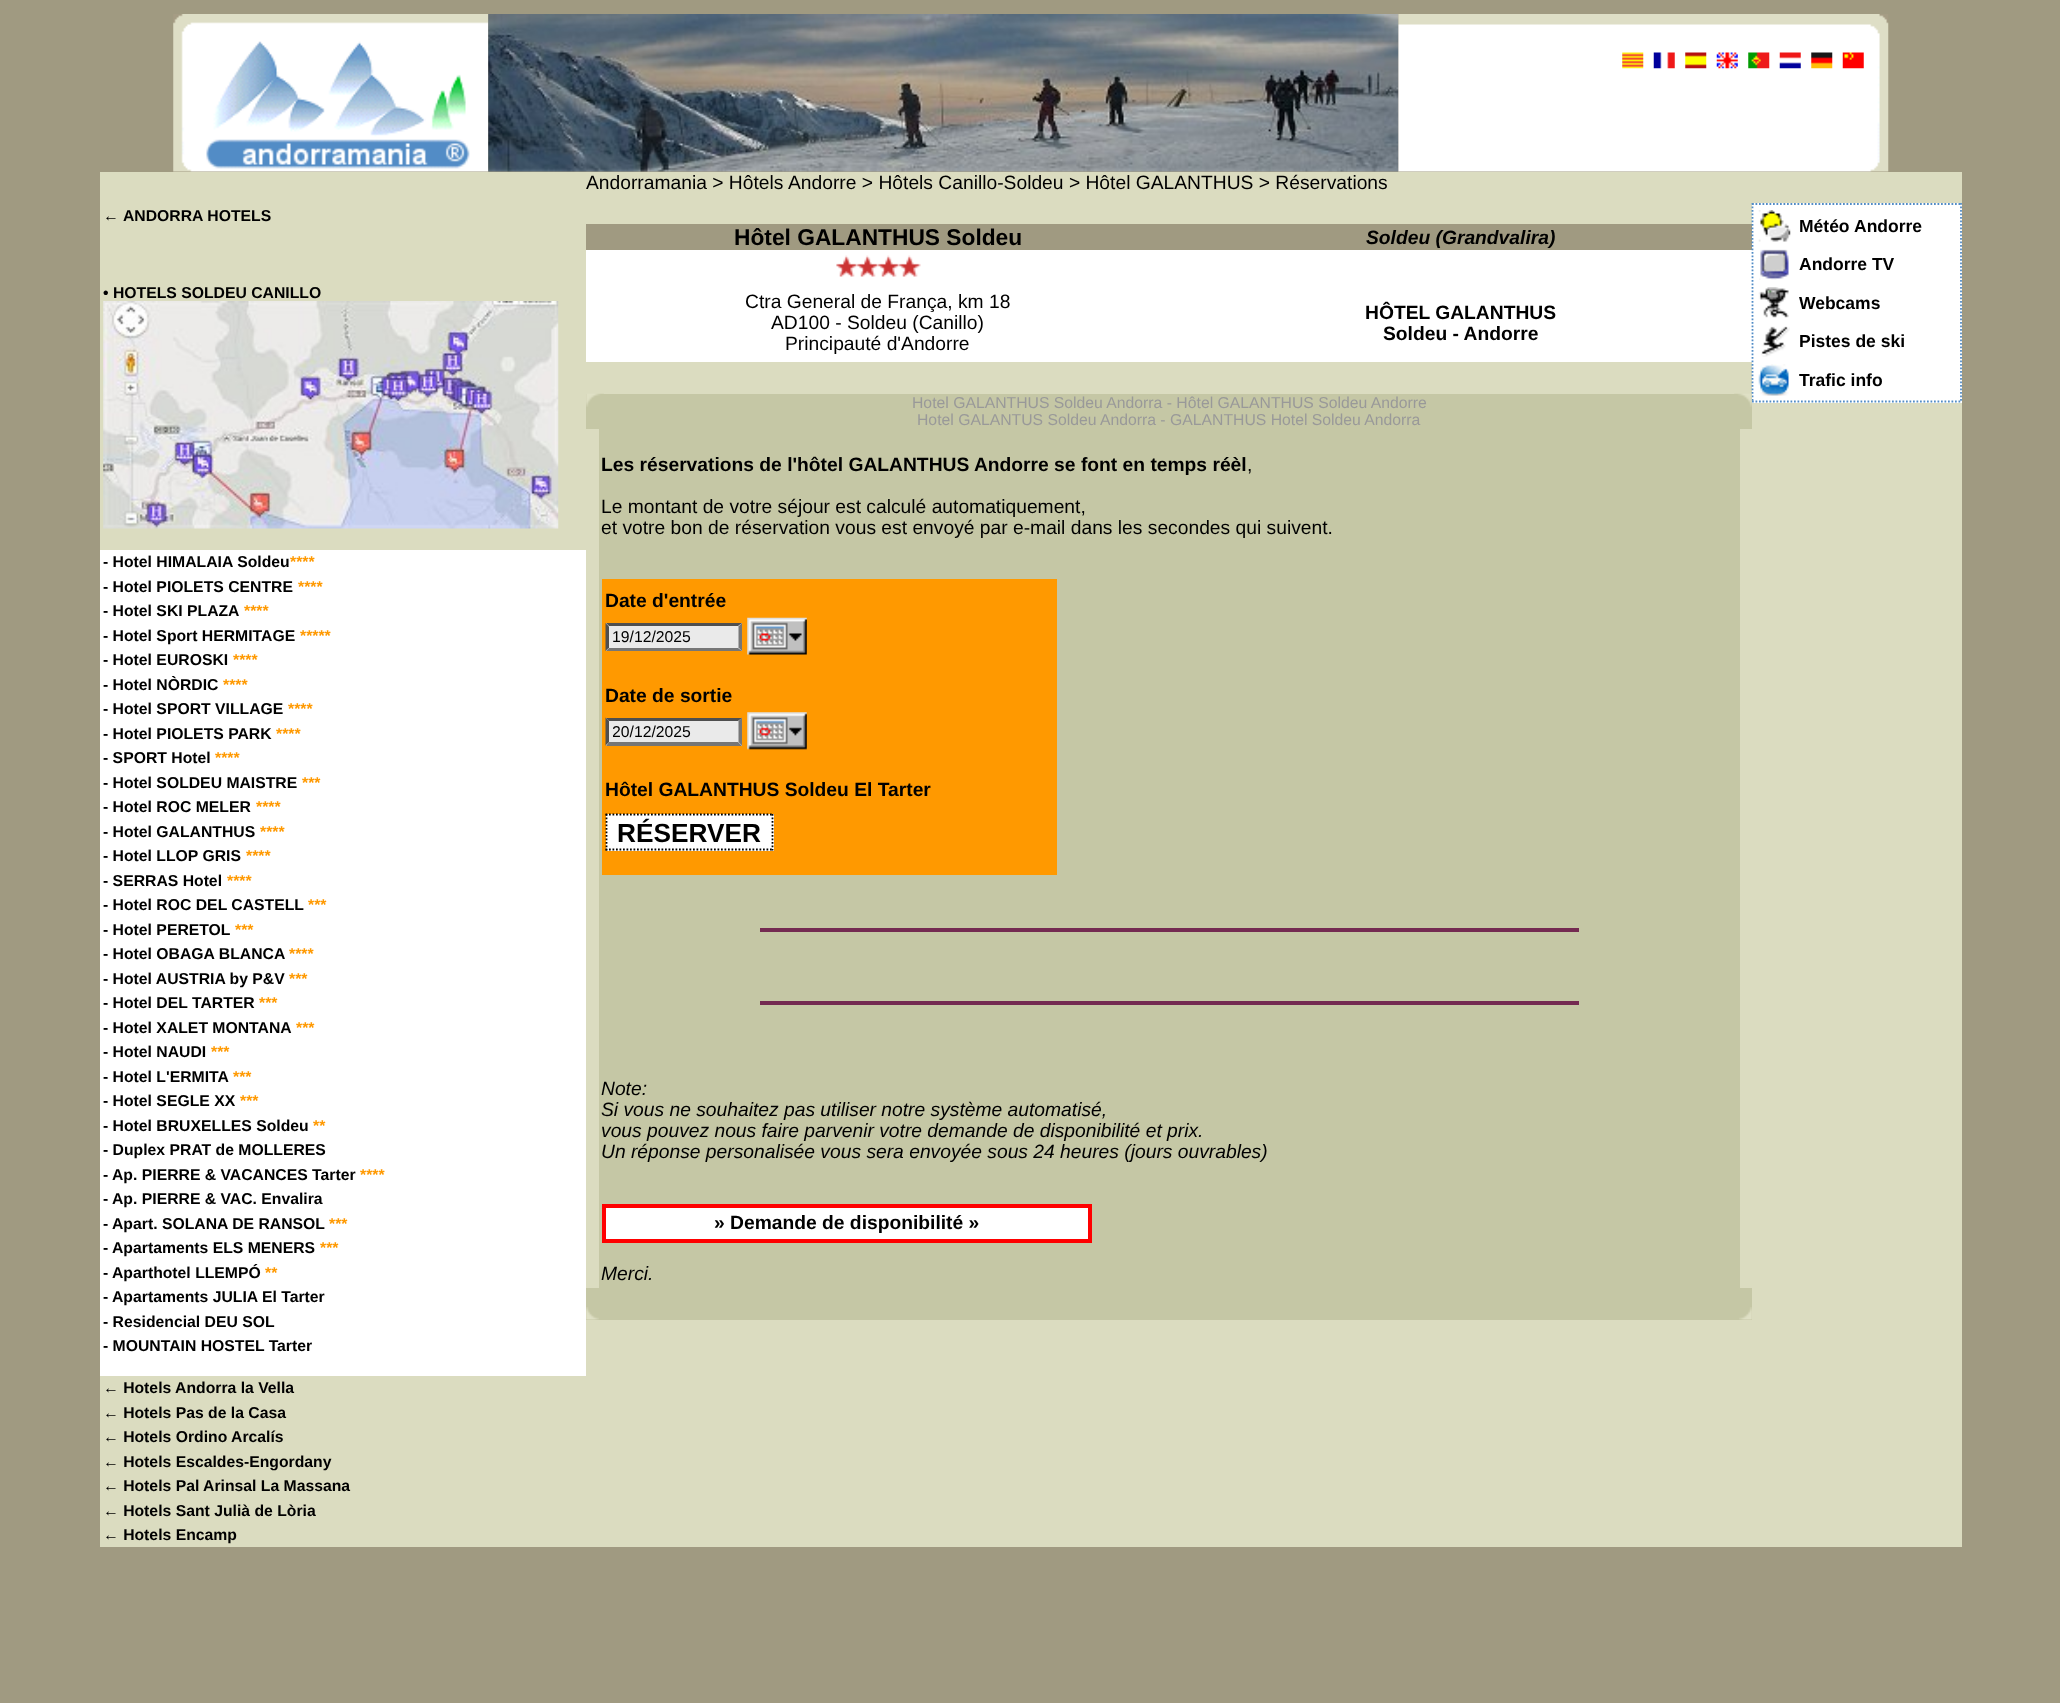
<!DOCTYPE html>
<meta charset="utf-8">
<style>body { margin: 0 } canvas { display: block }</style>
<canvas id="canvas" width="2060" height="1703"></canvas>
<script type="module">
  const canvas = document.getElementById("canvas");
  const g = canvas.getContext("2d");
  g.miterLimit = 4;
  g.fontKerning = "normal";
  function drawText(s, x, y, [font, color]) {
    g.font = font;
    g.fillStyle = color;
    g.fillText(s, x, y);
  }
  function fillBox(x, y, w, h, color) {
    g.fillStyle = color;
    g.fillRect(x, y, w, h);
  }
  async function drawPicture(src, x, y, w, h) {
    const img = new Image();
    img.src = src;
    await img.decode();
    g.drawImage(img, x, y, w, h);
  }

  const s1 = ["bold 15.75px Liberation Sans", "#000000"];
  const s2 = ["bold 15.75px Liberation Sans", "#FF9900"];
  const s3 = ["19.25px Liberation Sans", "#000000"];
  const s4 = ["bold 22.75px Liberation Sans", "#000000"];
  const s5 = ["italic bold 19.25px Liberation Sans", "#000000"];
  const s6 = ["bold 19.25px Liberation Sans", "#000000"];
  const s7 = ["15.75px Liberation Sans", "#999999"];
  const s8 = ["15.75px Liberation Sans", "#000000"];
  const s9 = ["bold 26.25px Liberation Sans", "#000000"];
  const s10 = ["italic 19.25px Liberation Sans", "#000000"];
  const s11 = ["bold 17.5px Liberation Sans", "#000000"];

  fillBox(0, 0, 2060, 1703, "#A09A81");
  await drawPicture("pic1.png", 173, 14, 316, 158);
  await drawPicture("pic3.png", 1398, 14, 471, 158);
  await drawPicture("pic2.png", 488, 14, 911, 158);
  await drawPicture("pic4.png", 1622, 52, 22, 17);
  await drawPicture("pic5.png", 1653, 52, 22, 17);
  await drawPicture("pic6.png", 1685, 52, 22, 17);
  await drawPicture("pic7.png", 1716, 52, 22, 17);
  await drawPicture("pic8.png", 1748, 52, 22, 17);
  await drawPicture("pic9.png", 1779, 52, 22, 17);
  await drawPicture("pic10.png", 1811, 52, 22, 17);
  await drawPicture("pic11.png", 1842, 52, 22, 17);
  await drawPicture("pic12.png", 1869, 14, 20, 158);
  fillBox(100, 172, 1862, 1375, "#DBDCC0");
  drawText("←", 103, 221, s1);
  drawText("ANDORRA HOTELS", 123, 221, s1);
  drawText("• HOTELS SOLDEU CANILLO", 103, 298, s1);
  await drawPicture("pic13.png", 103, 301, 456, 228);
  fillBox(100, 550, 486, 826, "#FFFFFF");
  drawText("- Hotel HIMALAIA Soldeu", 103, 567, s1);
  drawText("****", 290, 567, s2);
  drawText("- Hotel PIOLETS CENTRE", 103, 592, s1);
  drawText("****", 298, 592, s2);
  drawText("- Hotel SKI PLAZA", 103, 616, s1);
  drawText("****", 244, 616, s2);
  drawText("- Hotel Sport HERMITAGE", 103, 641, s1);
  drawText("*****", 300, 641, s2);
  drawText("- Hotel EUROSKI", 103, 665, s1);
  drawText("****", 233, 665, s2);
  drawText("- Hotel NÒRDIC", 103, 690, s1);
  drawText("****", 223, 690, s2);
  drawText("- Hotel SPORT VILLAGE", 103, 714, s1);
  drawText("****", 288, 714, s2);
  drawText("- Hotel PIOLETS PARK", 103, 739, s1);
  drawText("****", 276, 739, s2);
  drawText("- SPORT Hotel", 103, 763, s1);
  drawText("****", 215, 763, s2);
  drawText("- Hotel SOLDEU MAISTRE", 103, 788, s1);
  drawText("***", 302, 788, s2);
  drawText("- Hotel ROC MELER", 103, 812, s1);
  drawText("****", 256, 812, s2);
  drawText("- Hotel GALANTHUS", 103, 837, s1);
  drawText("****", 260, 837, s2);
  drawText("- Hotel LLOP GRIS", 103, 861, s1);
  drawText("****", 246, 861, s2);
  drawText("- SERRAS Hotel", 103, 886, s1);
  drawText("****", 227, 886, s2);
  drawText("- Hotel ROC DEL CASTELL", 103, 910, s1);
  drawText("***", 308, 910, s2);
  drawText("- Hotel PERETOL", 103, 935, s1);
  drawText("***", 235, 935, s2);
  drawText("- Hotel OBAGA BLANCA", 103, 959, s1);
  drawText("****", 289, 959, s2);
  drawText("- Hotel AUSTRIA by P&V", 103, 984, s1);
  drawText("***", 289, 984, s2);
  drawText("- Hotel DEL TARTER", 103, 1008, s1);
  drawText("***", 259, 1008, s2);
  drawText("- Hotel XALET MONTANA", 103, 1033, s1);
  drawText("***", 296, 1033, s2);
  drawText("- Hotel NAUDI", 103, 1057, s1);
  drawText("***", 211, 1057, s2);
  drawText("- Hotel L'ERMITA", 103, 1082, s1);
  drawText("***", 233, 1082, s2);
  drawText("- Hotel SEGLE XX", 103, 1106, s1);
  drawText("***", 240, 1106, s2);
  drawText("- Hotel BRUXELLES Soldeu", 103, 1131, s1);
  drawText("**", 313, 1131, s2);
  drawText("- Duplex PRAT de MOLLERES", 103, 1155, s1);
  drawText("Ap. PIERRE & VACANCES Tarter", 112, 1180, s1);
  drawText("****", 360, 1180, s2);
  drawText("-", 103, 1180, s1);
  drawText("-", 103, 1204, s1);
  drawText("Ap. PIERRE & VAC. Envalira", 112, 1204, s1);
  drawText("Apart. SOLANA DE RANSOL", 112, 1229, s1);
  drawText("***", 329, 1229, s2);
  drawText("-", 103, 1229, s1);
  drawText("Apartaments ELS MENERS", 112, 1253, s1);
  drawText("***", 320, 1253, s2);
  drawText("-", 103, 1253, s1);
  drawText("Aparthotel LLEMPÓ", 112, 1278, s1);
  drawText("**", 265, 1278, s2);
  drawText("-", 103, 1278, s1);
  drawText("-", 103, 1302, s1);
  drawText("Apartaments JULIA El Tarter", 112, 1302, s1);
  drawText("- Residencial DEU SOL", 103, 1327, s1);
  drawText("- MOUNTAIN HOSTEL Tarter", 103, 1351, s1);
  drawText("← Hotels Andorra la Vella", 103, 1393, s1);
  drawText("← Hotels Pas de la Casa", 103, 1418, s1);
  drawText("← Hotels Ordino Arcalís", 103, 1442, s1);
  drawText("← Hotels Escaldes-Engordany", 103, 1467, s1);
  drawText("← Hotels Pal Arinsal La Massana", 103, 1491, s1);
  drawText("← Hotels Sant Julià de Lòria", 103, 1516, s1);
  drawText("← Hotels Encamp", 103, 1540, s1);
  drawText("Andorramania > Hôtels", 586, 189, s3);
  drawText("Andorre > Hôtels Canillo-Soldeu > Hôtel GALANTHUS > Réservations", 788, 189, s3);
  fillBox(586, 224, 1166, 26, "#A09A81");
  drawText("Hôtel GALANTHUS Soldeu", 734, 245, s4);
  drawText("Soldeu (Grandvalira)", 1366, 244, s5);
  fillBox(586, 250, 1166, 112, "#FFFFFF");
  await drawPicture("pic14.png", 836, 255, 85, 22);
  drawText("Ctra General de França, km 18", 745, 308, s3);
  drawText("AD100 - Soldeu (Canillo)", 771, 329, s3);
  drawText("Principauté d'Andorre", 785, 350, s3);
  drawText("HÔTEL GALANTHUS", 1365, 319, s6);
  drawText("Soldeu - Andorre", 1383, 340, s6);
  fillBox(586, 394, 1166, 35, "#C5C7A5");
  await drawPicture("pic15.png", 586, 393, 18, 14);
  drawText("Hotel GALANTHUS Soldeu Andorra - Hôtel GALANTHUS Soldeu Andorre", 912, 408, s7);
  drawText("Hotel GALANTUS Soldeu Andorra - GALANTHUS Hotel Soldeu Andorra", 917, 425, s7);
  fillBox(1752, 203, 210, 200, "#FFFFFF");
  g.beginPath();
  g.moveTo(1752, 204);
  g.lineTo(1962, 204);
  g.strokeStyle = "#528CC6";
  g.lineWidth = 1.8;
  g.setLineDash([1.75, 1.75]);
  g.stroke();
  g.beginPath();
  g.moveTo(1961, 203);
  g.lineTo(1961, 402.5);
  g.stroke();
  g.beginPath();
  g.moveTo(1752, 401.5);
  g.lineTo(1962, 401.5);
  g.stroke();
  g.beginPath();
  g.moveTo(1752.5, 203);
  g.lineTo(1752.5, 402.5);
  g.stroke();
  await drawPicture("pic16.png", 1734, 393, 18, 14);
  fillBox(599, 429, 1141, 859, "#C5C7A5");
  drawText("Les réservations de l'hôtel GALANTHUS Andorre se font en temps réèl", 601, 471, s6);
  drawText(",", 1247, 471, s3);
  drawText("Le montant de votre séjour est calculé automatiquement,", 601, 513, s3);
  drawText("et votre bon de réservation vous est envoyé par e-mail dans les secondes qui suivent.", 601, 534, s3);
  fillBox(602, 579, 455, 296, "#FF9900");
  drawText("Date d'entrée", 605, 607, s6);
  fillBox(606, 623, 136, 28, "#EAEAEA");
  g.fillStyle = "#4F4F4F";
  g.beginPath();
  g.moveTo(606, 623);
  g.lineTo(742, 623);
  g.lineTo(738, 626);
  g.lineTo(609, 626);
  g.closePath();
  g.fill();
  g.fillStyle = "#767676";
  g.beginPath();
  g.moveTo(742, 623);
  g.lineTo(742, 651);
  g.lineTo(738.5, 647.5);
  g.lineTo(738.5, 626.5);
  g.closePath();
  g.fill();
  g.beginPath();
  g.moveTo(742, 651);
  g.lineTo(606, 651);
  g.lineTo(609, 648);
  g.lineTo(738, 648);
  g.closePath();
  g.fill();
  g.fillStyle = "#4F4F4F";
  g.beginPath();
  g.moveTo(605.5, 651);
  g.lineTo(605.5, 623);
  g.lineTo(609, 626.5);
  g.lineTo(609, 647.5);
  g.closePath();
  g.fill();
  drawText("19/12/2025", 612, 642, s8);
  await drawPicture("pic17.png", 747, 617, 60, 38);
  drawText("Date de sortie", 605, 702, s6);
  fillBox(606, 718, 136, 28, "#EAEAEA");
  g.fillStyle = "#4F4F4F";
  g.beginPath();
  g.moveTo(606, 718);
  g.lineTo(742, 718);
  g.lineTo(738, 721);
  g.lineTo(609, 721);
  g.closePath();
  g.fill();
  g.fillStyle = "#767676";
  g.beginPath();
  g.moveTo(742, 717.5);
  g.lineTo(742, 745.5);
  g.lineTo(738.5, 742);
  g.lineTo(738.5, 721);
  g.closePath();
  g.fill();
  g.beginPath();
  g.moveTo(742, 746);
  g.lineTo(606, 746);
  g.lineTo(609, 742);
  g.lineTo(738, 742);
  g.closePath();
  g.fill();
  g.fillStyle = "#4F4F4F";
  g.beginPath();
  g.moveTo(605.5, 745.5);
  g.lineTo(605.5, 717.5);
  g.lineTo(609, 721);
  g.lineTo(609, 742);
  g.closePath();
  g.fill();
  g.save();
  g.beginPath();
  g.rect(613, 723, 122, 17);
  g.clip();
  drawText("20/12/2025", 612, 737, s8);
  g.restore();
  await drawPicture("pic18.png", 747, 712, 60, 38);
  drawText("Hôtel GALANTHUS Soldeu El Tarter", 605, 796, s6);
  fillBox(606, 814, 168, 37, "#FFFFFF");
  g.beginPath();
  g.moveTo(605.5, 814.5);
  g.lineTo(773.5, 814.5);
  g.strokeStyle = "#000000";
  g.stroke();
  g.beginPath();
  g.moveTo(772.5, 814);
  g.lineTo(772.5, 850.5);
  g.stroke();
  g.beginPath();
  g.moveTo(605.5, 849.5);
  g.lineTo(773.5, 849.5);
  g.stroke();
  g.beginPath();
  g.moveTo(606.5, 814);
  g.lineTo(606.5, 850.5);
  g.stroke();
  drawText("RÉSERVER", 617, 842, s9);
  fillBox(760, 928, 819, 4, "#742A51");
  fillBox(760, 1001, 819, 4, "#742A51");
  drawText("Note:", 601, 1095, s10);
  drawText("Si vous ne souhaitez pas utiliser notre système automatisé,", 601, 1116, s10);
  drawText("vous pouvez nous faire parvenir votre demande de disponibilité et prix.", 601, 1137, s10);
  drawText("Un réponse personalisée vous sera envoyée sous 24 heures (jours ouvrables)", 601, 1158, s10);
  fillBox(606, 1208, 482, 31, "#FFFFFF");
  g.strokeStyle = "#FF0000";
  g.lineWidth = 2;
  g.setLineDash([]);
  g.strokeRect(603, 1205, 488, 37);
  g.strokeRect(605, 1207, 484, 33);
  drawText("» Demande de disponibilité »", 714, 1229, s6);
  drawText("Merci.", 601, 1280, s10);
  fillBox(586, 1288, 1166, 32, "#C5C7A5");
  await drawPicture("pic19.png", 586, 1307, 13, 13);
  await drawPicture("pic20.png", 1739, 1307, 13, 13);
  await drawPicture("pic21.png", 1758, 210, 33, 32);
  drawText("Météo", 1799, 232, s11);
  drawText("Andorre", 1854, 232, s11);
  await drawPicture("pic22.png", 1759, 249, 30, 31);
  drawText("Andorre TV", 1799, 270, s11);
  await drawPicture("pic23.png", 1758, 287, 31, 31);
  drawText("Webcams", 1799, 309, s11);
  await drawPicture("pic24.png", 1761, 326, 29, 31);
  drawText("Pistes de ski", 1799, 347, s11);
  await drawPicture("pic25.png", 1758, 364, 32, 32);
  drawText("Trafic info", 1799, 386, s11);
</script>
